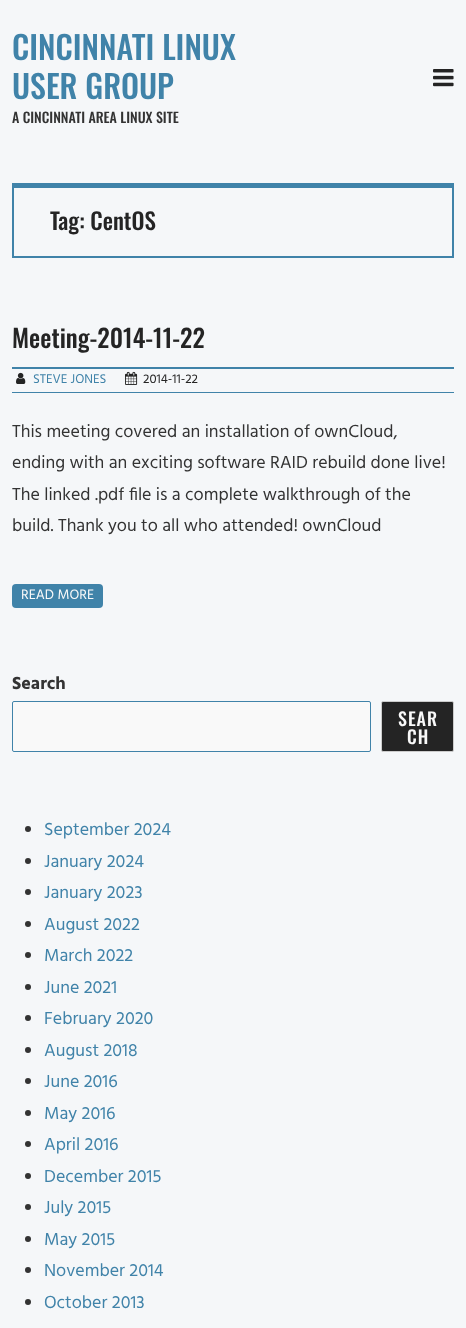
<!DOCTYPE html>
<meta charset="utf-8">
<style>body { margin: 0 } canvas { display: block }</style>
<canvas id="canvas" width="466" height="1328"></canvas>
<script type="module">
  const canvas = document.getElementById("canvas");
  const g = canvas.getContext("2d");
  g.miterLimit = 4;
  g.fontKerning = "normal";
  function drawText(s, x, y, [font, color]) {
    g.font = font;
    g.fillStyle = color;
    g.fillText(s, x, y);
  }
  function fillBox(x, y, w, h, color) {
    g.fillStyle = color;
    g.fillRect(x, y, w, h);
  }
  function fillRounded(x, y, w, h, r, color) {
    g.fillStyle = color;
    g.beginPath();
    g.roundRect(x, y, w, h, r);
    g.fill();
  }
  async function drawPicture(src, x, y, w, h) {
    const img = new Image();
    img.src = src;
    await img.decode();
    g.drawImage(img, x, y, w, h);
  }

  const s1 = ["500 32px Oswald", "#4083A9"];
  const s2 = ["500 14px Oswald", "#333333"];
  const s3 = ["500 23px Oswald", "#242424"];
  const s4 = ["500 25px Oswald", "#242424"];
  const s5 = ["13px Hind", "#4083A9"];
  const s6 = ["13px Hind", "#242424"];
  const s7 = ["18px Hind", "#333333"];
  const s8 = ["14px Hind", "#F9F9F9"];
  const s9 = ["bold 18px Hind", "#333333"];
  const s10 = ["500 18px Oswald", "#F9F9F9"];
  const s11 = ["18px Hind", "#4083A9"];

  fillBox(0, 0, 466, 1328, "#F5F7F9");
  drawText("CINCINNATI LINUX", 12, 60, s1);
  drawText("USER GROUP", 12, 99, s1);
  drawText("A CINCINNATI AREA LINUX SITE", 12, 123, s2);
  await drawPicture("pic1.png", 433, 69, 21, 18);
  fillBox(12, 183, 442, 5, "#4083A9");
  fillBox(452, 183, 2, 75, "#4083A9");
  fillBox(12, 256, 442, 2, "#4083A9");
  fillBox(12, 183, 2, 75, "#4083A9");
  drawText("Tag: CentOS", 50, 230, s3);
  drawText("Meeting-2014-11-22", 12, 348, s4);
  fillBox(12, 367, 442, 2, "#4083A9");
  fillBox(12, 392, 442, 1, "#4083A9");
  await drawPicture("pic2.png", 16, 372, 10, 12);
  drawText("STEVE JONES", 33, 383, s5);
  await drawPicture("pic3.png", 125, 371, 13, 14);
  drawText("2014-11-22", 143, 383, s6);
  drawText("This meeting covered an installation of ownCloud,", 12, 437, s7);
  drawText("ending with an exciting software RAID rebuild done live!", 12, 468, s7);
  drawText("The linked .pdf file is a complete walkthrough of the", 12, 500, s7);
  drawText("build. Thank you to all who attended! ownCloud", 12, 531, s7);
  fillRounded(12, 584, 91, 24, 4, "#4083A9");
  drawText("READ MORE", 21, 599, s8);
  drawText("Search", 12, 689, s9);
  g.fillStyle = "#F9F9F9";
  g.beginPath();
  g.roundRect(12.5, 701.5, 358, 50, 1.5);
  g.fill();
  g.strokeStyle = "#4083A9";
  g.stroke();
  g.fillStyle = "#242424";
  g.beginPath();
  g.roundRect(381.5, 701.5, 72, 50, 1.5);
  g.fill();
  g.strokeStyle = "#CCCCCC";
  g.stroke();
  g.letterSpacing = "1px";
  drawText("SEAR", 398, 726, s10);
  drawText("CH", 407, 744, s10);
  g.fillStyle = "#333333";
  g.beginPath();
  g.arc(28, 829, 3, 0, Math.PI * 2);
  g.fill();
  g.letterSpacing = "0px";
  drawText("September 2024", 44, 835, s11);
  g.fillStyle = "#333333";
  g.beginPath();
  g.arc(28, 861, 3, 0, Math.PI * 2);
  g.fill();
  drawText("January 2024", 44, 867, s11);
  g.fillStyle = "#333333";
  g.beginPath();
  g.arc(28, 892, 3, 0, Math.PI * 2);
  g.fill();
  drawText("January 2023", 44, 898, s11);
  g.fillStyle = "#333333";
  g.beginPath();
  g.arc(28, 924, 3, 0, Math.PI * 2);
  g.fill();
  drawText("August 2022", 44, 930, s11);
  g.fillStyle = "#333333";
  g.beginPath();
  g.arc(28, 955, 3, 0, Math.PI * 2);
  g.fill();
  drawText("March 2022", 44, 961, s11);
  g.fillStyle = "#333333";
  g.beginPath();
  g.arc(28, 987, 3, 0, Math.PI * 2);
  g.fill();
  drawText("June 2021", 44, 993, s11);
  g.fillStyle = "#333333";
  g.beginPath();
  g.arc(28, 1018, 3, 0, Math.PI * 2);
  g.fill();
  drawText("February 2020", 44, 1024, s11);
  g.fillStyle = "#333333";
  g.beginPath();
  g.arc(28, 1050, 3, 0, Math.PI * 2);
  g.fill();
  drawText("August 2018", 44, 1056, s11);
  g.fillStyle = "#333333";
  g.beginPath();
  g.arc(28, 1081, 3, 0, Math.PI * 2);
  g.fill();
  drawText("June 2016", 44, 1087, s11);
  g.fillStyle = "#333333";
  g.beginPath();
  g.arc(28, 1113, 3, 0, Math.PI * 2);
  g.fill();
  drawText("May 2016", 44, 1119, s11);
  g.fillStyle = "#333333";
  g.beginPath();
  g.arc(28, 1144, 3, 0, Math.PI * 2);
  g.fill();
  drawText("April 2016", 44, 1150, s11);
  g.fillStyle = "#333333";
  g.beginPath();
  g.arc(28, 1176, 3, 0, Math.PI * 2);
  g.fill();
  drawText("December 2015", 44, 1182, s11);
  g.fillStyle = "#333333";
  g.beginPath();
  g.arc(28, 1207, 3, 0, Math.PI * 2);
  g.fill();
  drawText("July 2015", 44, 1213, s11);
  g.fillStyle = "#333333";
  g.beginPath();
  g.arc(28, 1239, 3, 0, Math.PI * 2);
  g.fill();
  drawText("May 2015", 44, 1245, s11);
  g.fillStyle = "#333333";
  g.beginPath();
  g.arc(28, 1270, 3, 0, Math.PI * 2);
  g.fill();
  drawText("November 2014", 44, 1276, s11);
  g.fillStyle = "#333333";
  g.beginPath();
  g.arc(28, 1302, 3, 0, Math.PI * 2);
  g.fill();
  drawText("October 2013", 44, 1308, s11);
</script>
